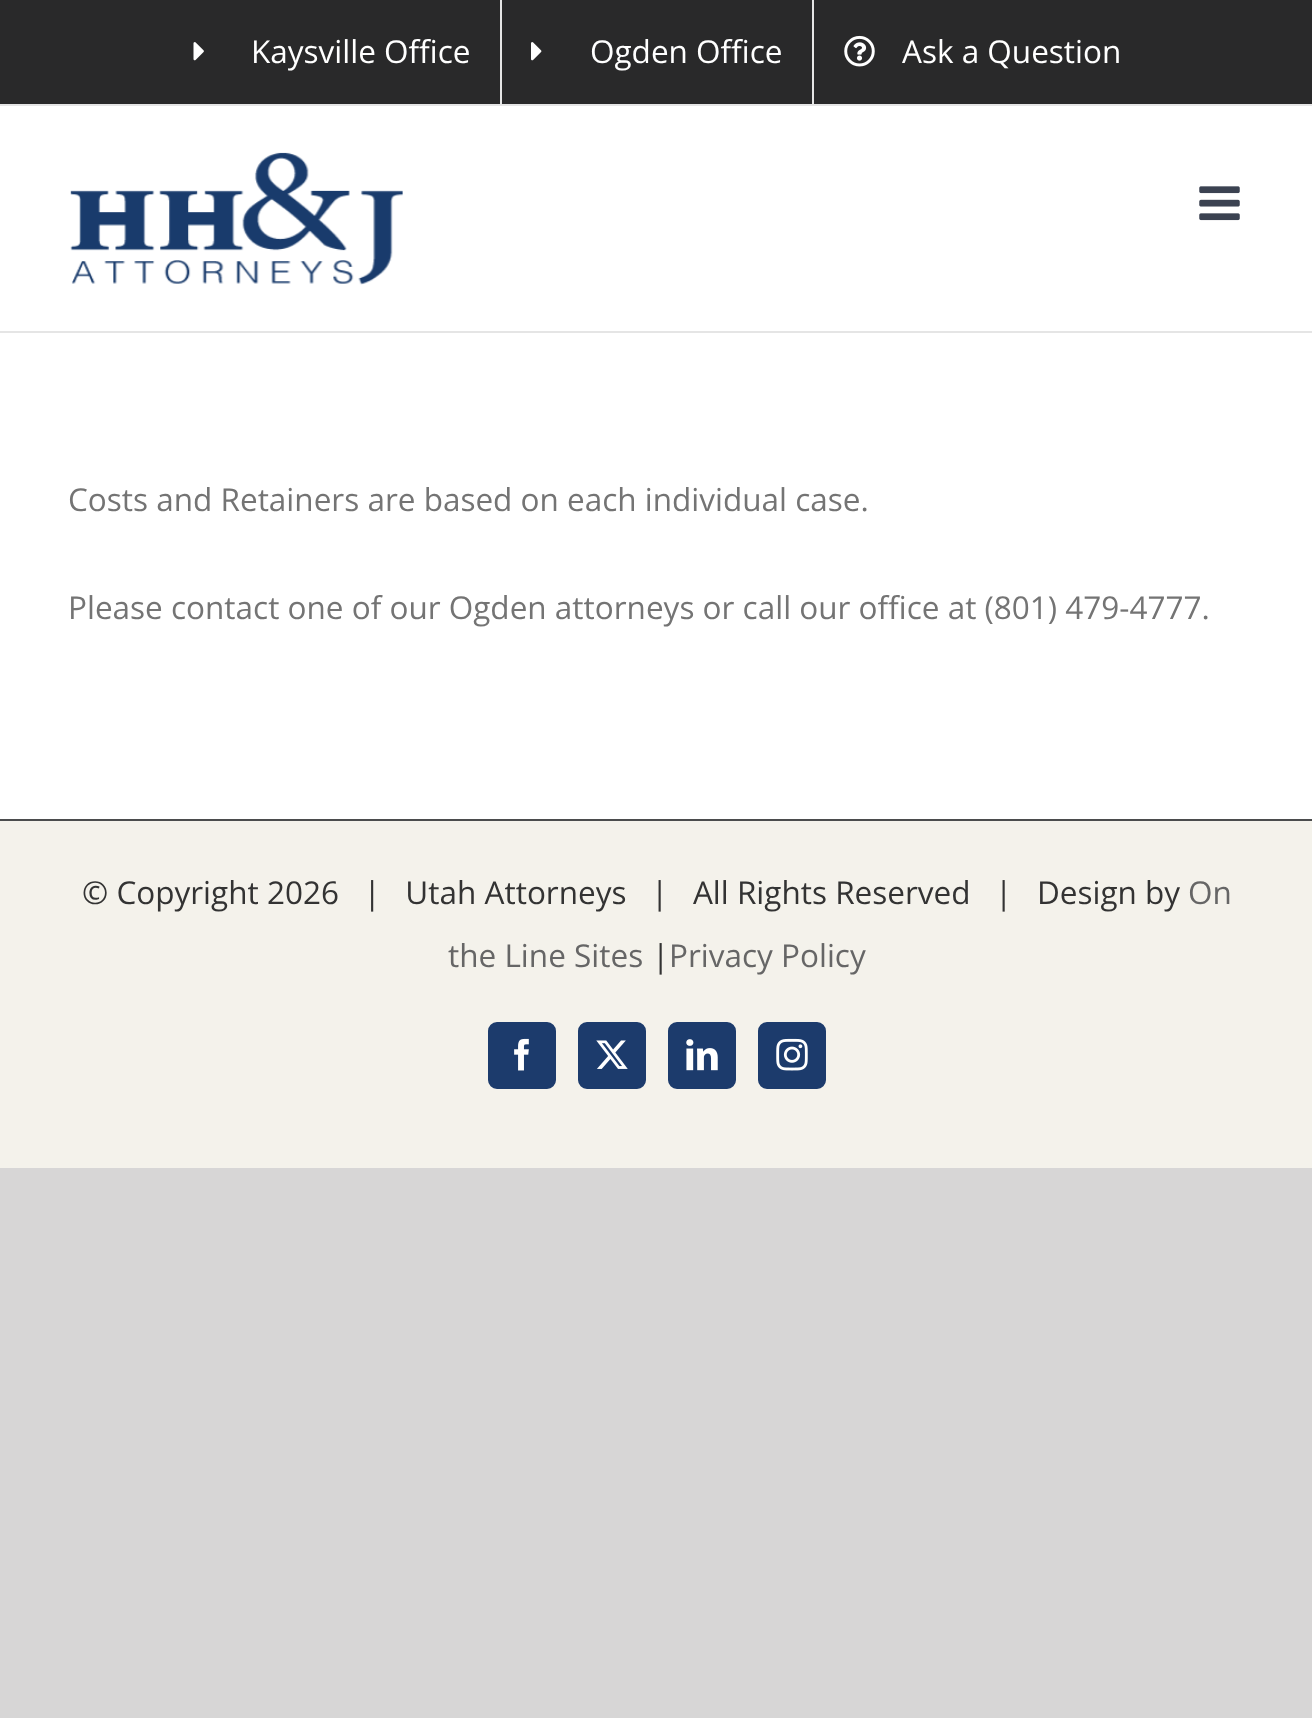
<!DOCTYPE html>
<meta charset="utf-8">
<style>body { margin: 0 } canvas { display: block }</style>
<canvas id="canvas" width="1312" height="1718"></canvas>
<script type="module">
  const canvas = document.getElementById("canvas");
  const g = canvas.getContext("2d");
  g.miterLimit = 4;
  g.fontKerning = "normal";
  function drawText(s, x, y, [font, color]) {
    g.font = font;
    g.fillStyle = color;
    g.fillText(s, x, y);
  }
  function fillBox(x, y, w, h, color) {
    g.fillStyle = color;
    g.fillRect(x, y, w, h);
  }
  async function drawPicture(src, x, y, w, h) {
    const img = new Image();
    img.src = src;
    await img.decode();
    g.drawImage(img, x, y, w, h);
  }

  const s1 = ["31.5px Open Sans", "#FFFFFF"];
  const s2 = ["31.5px Open Sans", "#747474"];
  const s3 = ["31.5px Open Sans", "#333333"];
  const s4 = ["31.5px Open Sans", "#666666"];

  fillBox(0, 0, 1312, 1718, "#D7D6D6");
  fillBox(0, 106, 1312, 713, "#FFFFFF");
  fillBox(0, 0, 1312, 104, "#29292A");
  fillBox(0, 104, 1312, 2, "#E5E5E5");
  await drawPicture("pic1.png", 193, 42, 11, 19);
  drawText("Kaysville Office", 251, 63, s1);
  fillBox(500, 0, 2, 104, "#E5E5E5");
  await drawPicture("pic2.png", 531, 42, 11, 19);
  drawText("Ogden Office", 590, 63, s1);
  fillBox(812, 0, 2, 104, "#E5E5E5");
  await drawPicture("pic3.png", 844, 35, 31, 32);
  drawText("Ask a Question", 902, 63, s1);
  fillBox(0, 331, 1312, 2, "#E5E5E5");
  await drawPicture("pic4.png", 70, 152, 333, 133);
  await drawPicture("pic5.png", 1199, 186, 41, 35);
  drawText("Costs and Retainers are based on each individual case.", 68, 511, s2);
  drawText("Please contact one of our Ogden attorneys or call our office at (801) 479-4777.", 68, 619, s2);
  fillBox(0, 821, 1312, 347, "#F4F2EB");
  fillBox(0, 819, 1312, 2, "#4B4C4D");
  drawText("© Copyright 2026   |   Utah Attorneys   |   All Rights Reserved   |   Design by", 82, 904, s3);
  drawText("On", 1188, 904, s4);
  drawText("the Line Sites", 448, 967, s4);
  drawText("|", 652, 967, s3);
  drawText("Privacy Policy", 669, 967, s4);
  g.fillStyle = "#1C3B6C";
  g.beginPath();
  g.roundRect(489, 1023, 66, 65, 8);
  g.fill();
  g.strokeStyle = "#1C3B6C";
  g.lineWidth = 2;
  g.stroke();
  await drawPicture("pic6.png", 514, 1038, 15, 33);
  g.beginPath();
  g.roundRect(579, 1023, 66, 65, 8);
  g.fill();
  g.stroke();
  await drawPicture("pic7.png", 596, 1040, 32, 29);
  g.beginPath();
  g.roundRect(669, 1023, 66, 65, 8);
  g.fill();
  g.stroke();
  await drawPicture("pic8.png", 686, 1039, 32, 32);
  g.beginPath();
  g.roundRect(759, 1023, 66, 65, 8);
  g.fill();
  g.stroke();
  await drawPicture("pic9.png", 776, 1038, 32, 33);
</script>
